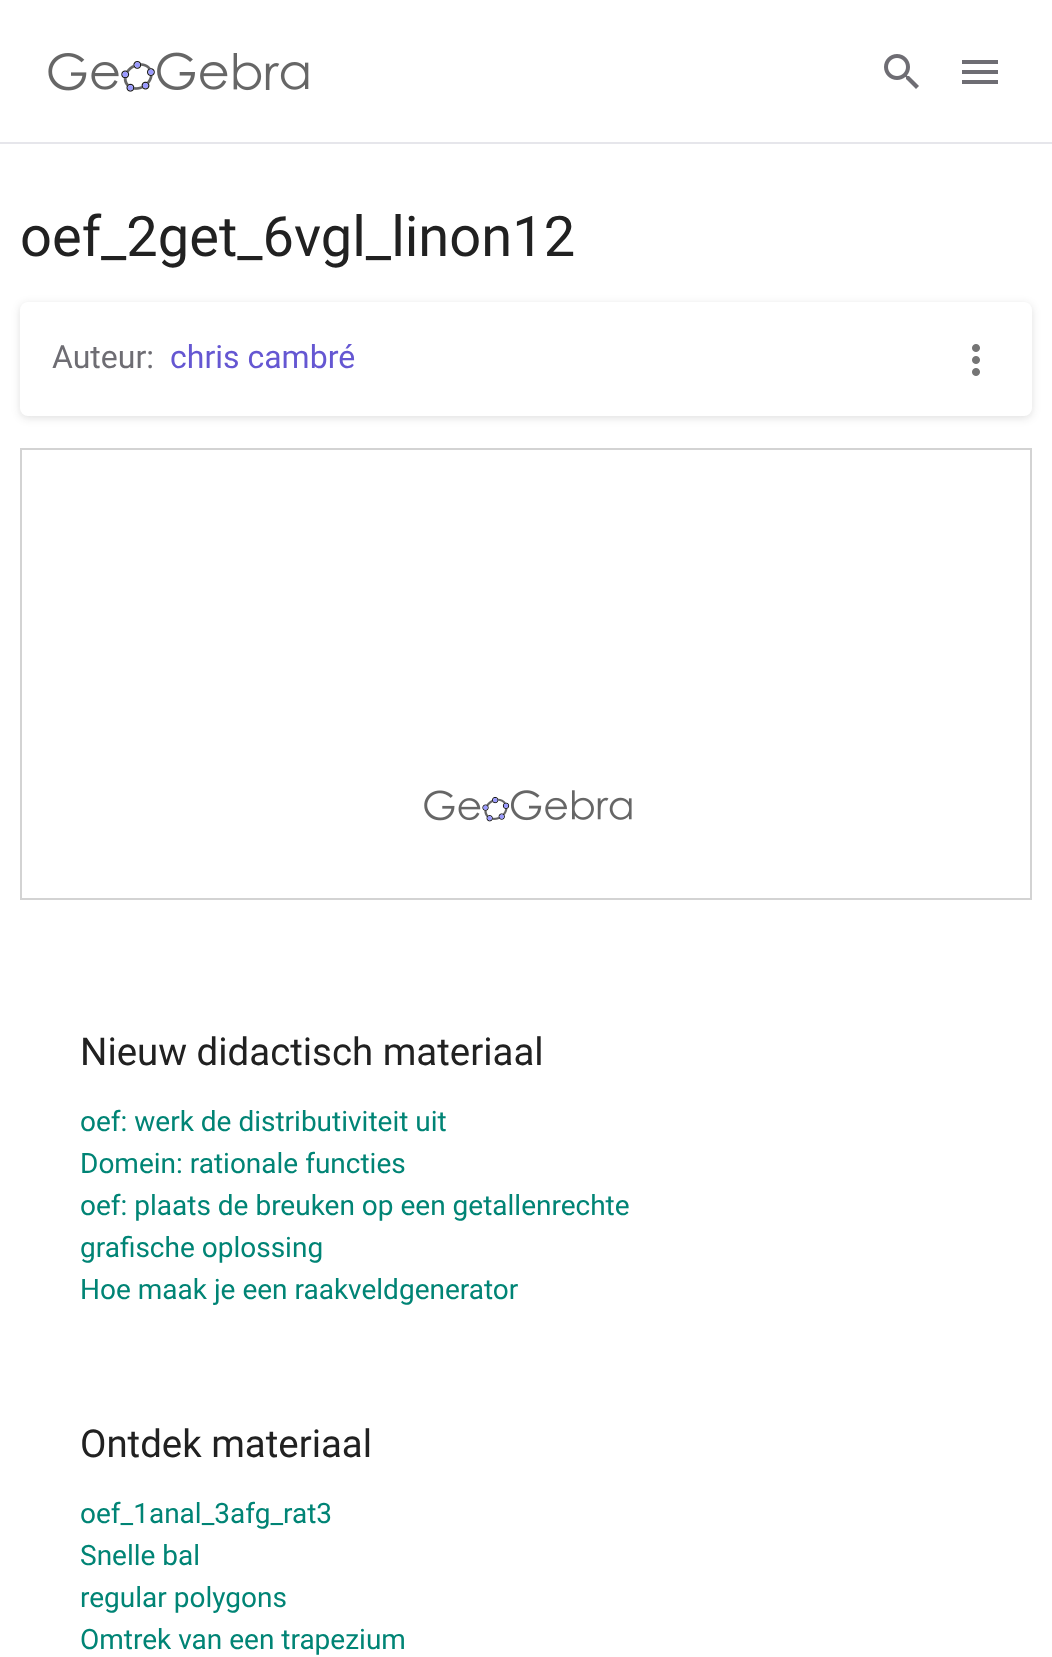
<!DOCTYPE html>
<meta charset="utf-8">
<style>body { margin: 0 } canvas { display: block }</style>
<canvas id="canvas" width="1052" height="1657"></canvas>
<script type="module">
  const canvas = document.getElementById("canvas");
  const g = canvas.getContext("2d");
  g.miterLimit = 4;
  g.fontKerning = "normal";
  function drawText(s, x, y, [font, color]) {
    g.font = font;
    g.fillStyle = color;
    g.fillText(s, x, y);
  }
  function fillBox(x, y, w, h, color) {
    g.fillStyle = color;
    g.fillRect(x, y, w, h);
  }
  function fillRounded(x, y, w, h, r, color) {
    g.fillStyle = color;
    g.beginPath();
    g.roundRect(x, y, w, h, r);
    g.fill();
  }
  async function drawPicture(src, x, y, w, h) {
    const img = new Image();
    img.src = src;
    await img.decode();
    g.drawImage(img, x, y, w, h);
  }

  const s1 = ["56px Roboto", "#212121"];
  const s2 = ["32px Roboto", "#6E6D73"];
  const s3 = ["32px Roboto", "#6557D2"];
  const s4 = ["38.4px Roboto", "#212121"];
  const s5 = ["28px Roboto", "#008475"];

  fillBox(0, 0, 1052, 1657, "#FFFFFF");
  fillBox(0, 142, 1052, 2, "#E6E6EB");
  await drawPicture("pic1.png", 48, 52, 261, 40);
  await drawPicture("pic2.png", 884, 54, 35, 35);
  await drawPicture("pic3.png", 962, 60, 36, 24);
  drawText("oef_2get_6vgl_linon12", 20, 256, s1);
  g.fillStyle = "rgba(28, 28, 31, 0.14)";
  g.filter = "blur(4px)";
  g.beginPath();
  g.roundRect(20, 304, 1012, 114, 8);
  g.fill();
  g.filter = "none";
  fillRounded(20, 302, 1012, 114, 8, "#FFFFFF");
  drawText("Auteur:", 52, 368, s2);
  drawText("chris cambré", 170, 368, s3);
  await drawPicture("pic4.png", 972, 344, 8, 32);
  await drawPicture("pic5.png", 424, 790, 208, 32);
  g.strokeStyle = "#D3D3D3";
  g.lineWidth = 2;
  g.strokeRect(21, 449, 1010, 450);
  drawText("Nieuw didactisch materiaal", 80, 1065, s4);
  drawText("oef: werk de distributiviteit uit", 80, 1131, s5);
  drawText("Domein: rationale functies", 80, 1173, s5);
  drawText("oef: plaats de breuken op een getallenrechte", 80, 1215, s5);
  drawText("grafische oplossing", 80, 1257, s5);
  drawText("Hoe maak je een raakveldgenerator", 80, 1299, s5);
  drawText("Ontdek materiaal", 80, 1457, s4);
  drawText("oef_1anal_3afg_rat3", 80, 1523, s5);
  drawText("Snelle bal", 80, 1565, s5);
  drawText("regular polygons", 80, 1607, s5);
  drawText("Omtrek van een trapezium", 80, 1649, s5);
</script>
